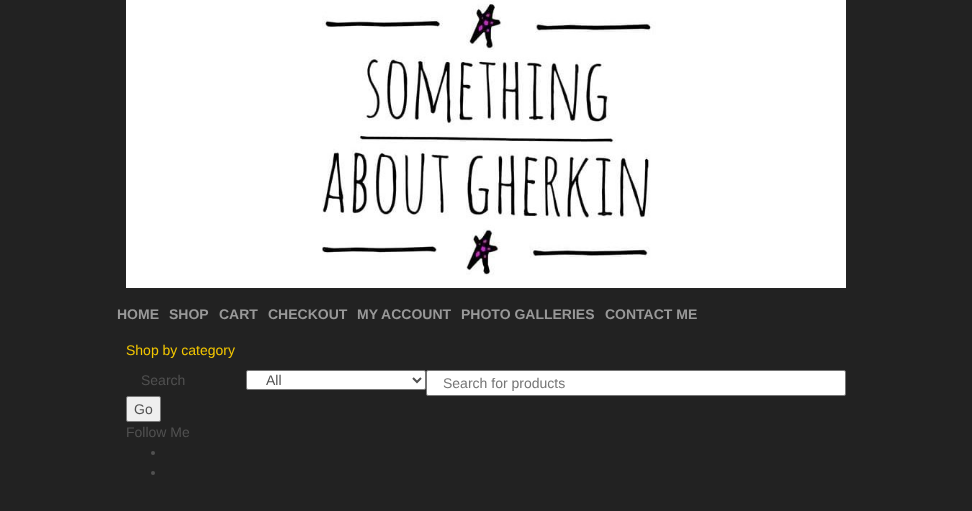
<!DOCTYPE html>
<meta charset="utf-8">
<style>body { margin: 0 } canvas { display: block }</style>
<canvas id="canvas" width="972" height="511"></canvas>
<script type="module">
  const canvas = document.getElementById("canvas");
  const g = canvas.getContext("2d");
  g.miterLimit = 4;
  g.fontKerning = "normal";
  function drawText(s, x, y, [font, color]) {
    g.font = font;
    g.fillStyle = color;
    g.fillText(s, x, y);
  }
  function fillBox(x, y, w, h, color) {
    g.fillStyle = color;
    g.fillRect(x, y, w, h);
  }
  async function drawPicture(src, x, y, w, h) {
    const img = new Image();
    img.src = src;
    await img.decode();
    g.drawImage(img, x, y, w, h);
  }

  const s1 = ["bold 14px Liberation Sans", "#999999"];
  const s2 = ["14px Liberation Sans", "#F4C700"];
  const s3 = ["14px Liberation Sans", "#515151"];
  const s4 = ["14px Liberation Sans", "#757575"];

  fillBox(0, 0, 972, 511, "#222222");
  await drawPicture("pic1.png", 126, 0, 720, 288);
  drawText("HOME", 117, 319, s1);
  drawText("SHOP", 169, 319, s1);
  drawText("CART", 219, 319, s1);
  drawText("CHECKOUT", 268, 319, s1);
  drawText("MY ACCOUNT", 357, 319, s1);
  drawText("PHOTO GALLERIES", 461, 319, s1);
  drawText("CONTACT ME", 605, 319, s1);
  drawText("Shop by category", 126, 355, s2);
  g.fillStyle = "#FFFFFF";
  g.beginPath();
  g.roundRect(246.5, 370.5, 179, 19, 1.5);
  g.fill();
  g.strokeStyle = "#767676";
  g.stroke();
  g.beginPath();
  g.moveTo(413, 378);
  g.lineTo(417, 382);
  g.lineTo(421, 378);
  g.strokeStyle = "#515151";
  g.lineWidth = 2;
  g.stroke();
  drawText("All", 266, 385, s3);
  g.fillStyle = "#FFFFFF";
  g.beginPath();
  g.roundRect(426.5, 370.5, 419, 25, 1.5);
  g.fill();
  g.strokeStyle = "#767676";
  g.lineWidth = 1;
  g.stroke();
  drawText("Search for products", 443, 388, s4);
  g.fillStyle = "#EFEFEF";
  g.beginPath();
  g.roundRect(126.5, 396.5, 34, 25, 1.5);
  g.fill();
  g.stroke();
  drawText("Go", 134, 414, s3);
  drawText("Search", 141, 385, s3);
  drawText("Follow Me", 126, 437, s3);
  g.beginPath();
  g.arc(153, 453, 2, 0, Math.PI * 2);
  g.fill();
  g.beginPath();
  g.arc(153, 473, 2, 0, Math.PI * 2);
  g.fill();
</script>
